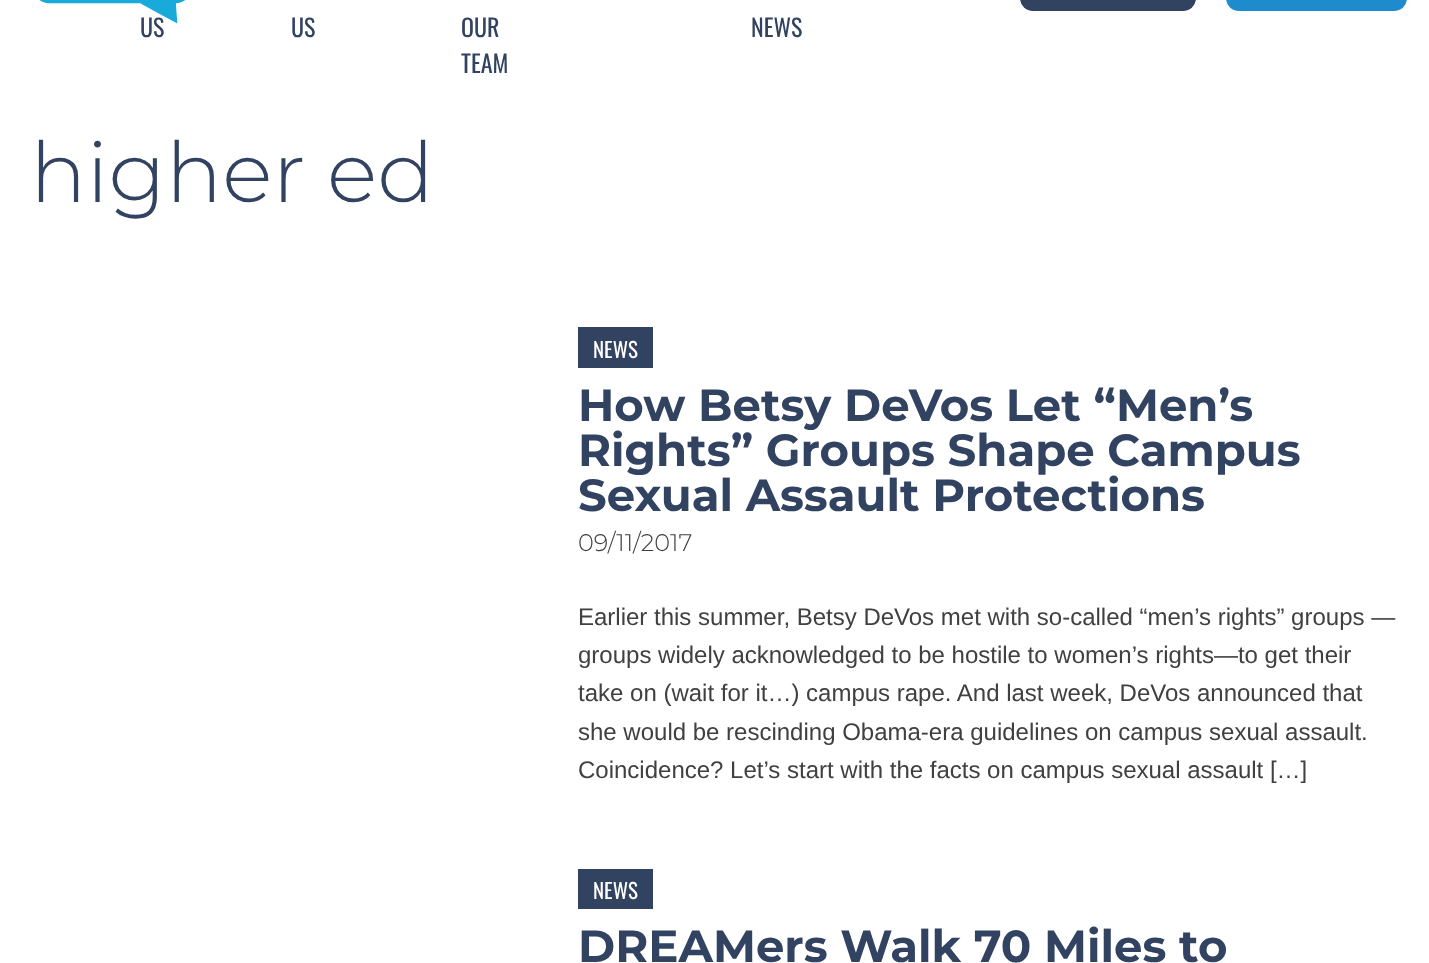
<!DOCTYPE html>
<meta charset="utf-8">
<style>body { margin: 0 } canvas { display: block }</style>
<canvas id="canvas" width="1429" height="963"></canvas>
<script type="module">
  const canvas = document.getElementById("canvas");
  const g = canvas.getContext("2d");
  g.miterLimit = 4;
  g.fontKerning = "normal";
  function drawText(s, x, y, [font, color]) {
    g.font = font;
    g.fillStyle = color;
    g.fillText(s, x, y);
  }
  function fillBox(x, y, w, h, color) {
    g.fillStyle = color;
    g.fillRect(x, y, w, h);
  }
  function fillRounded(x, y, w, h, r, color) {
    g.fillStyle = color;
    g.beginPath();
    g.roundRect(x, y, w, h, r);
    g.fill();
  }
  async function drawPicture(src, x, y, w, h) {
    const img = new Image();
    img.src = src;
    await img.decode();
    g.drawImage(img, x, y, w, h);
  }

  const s1 = ["24px Oswald", "#324261"];
  const s2 = ["300 84px Montserrat", "#324261"];
  const s3 = ["21px Oswald", "#FFFFFF"];
  const s4 = ["bold 45px Montserrat", "#324261"];
  const s5 = ["300 24px Montserrat", "#404040"];
  const s6 = ["24px Liberation Sans", "#404040"];

  fillBox(0, 0, 1429, 963, "#FFFFFF");
  await drawPicture("pic1.png", 39, 0, 147, 24);
  fillRounded(1020, -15, 176, 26, 15, "#324261");
  fillRounded(1226, -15, 181, 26, 15, "#1E8CCC");
  drawText("US", 140, 37, s1);
  drawText("US", 291, 37, s1);
  drawText("OUR", 461, 37, s1);
  drawText("TEAM", 461, 73, s1);
  drawText("NEWS", 751, 37, s1);
  drawText("higher ed", 30, 202, s2);
  fillBox(578, 327, 75, 41, "#324261");
  drawText("NEWS", 593, 358, s3);
  drawText("How Betsy DeVos Let “Men’s", 578, 421, s4);
  drawText("Rights” Groups Shape Campus", 578, 466, s4);
  drawText("Sexual Assault Protections", 578, 511, s4);
  drawText("09/11/2017", 578, 551, s5);
  drawText("Earlier this summer, Betsy DeVos met with so-called “men’s rights” groups —", 578, 625, s6);
  drawText("groups widely acknowledged to be hostile to women’s rights—to get their", 578, 663, s6);
  drawText("take on (wait for it…) campus rape. And last week, DeVos announced that", 578, 701, s6);
  drawText("she would be rescinding Obama-era guidelines on campus sexual assault.", 578, 740, s6);
  drawText("Coincidence? Let’s start with the facts on campus sexual assault […]", 578, 778, s6);
  fillBox(578, 869, 75, 40, "#324261");
  drawText("NEWS", 593, 899, s3);
  drawText("DREAMers Walk 70 Miles to", 578, 962, s4);
</script>
